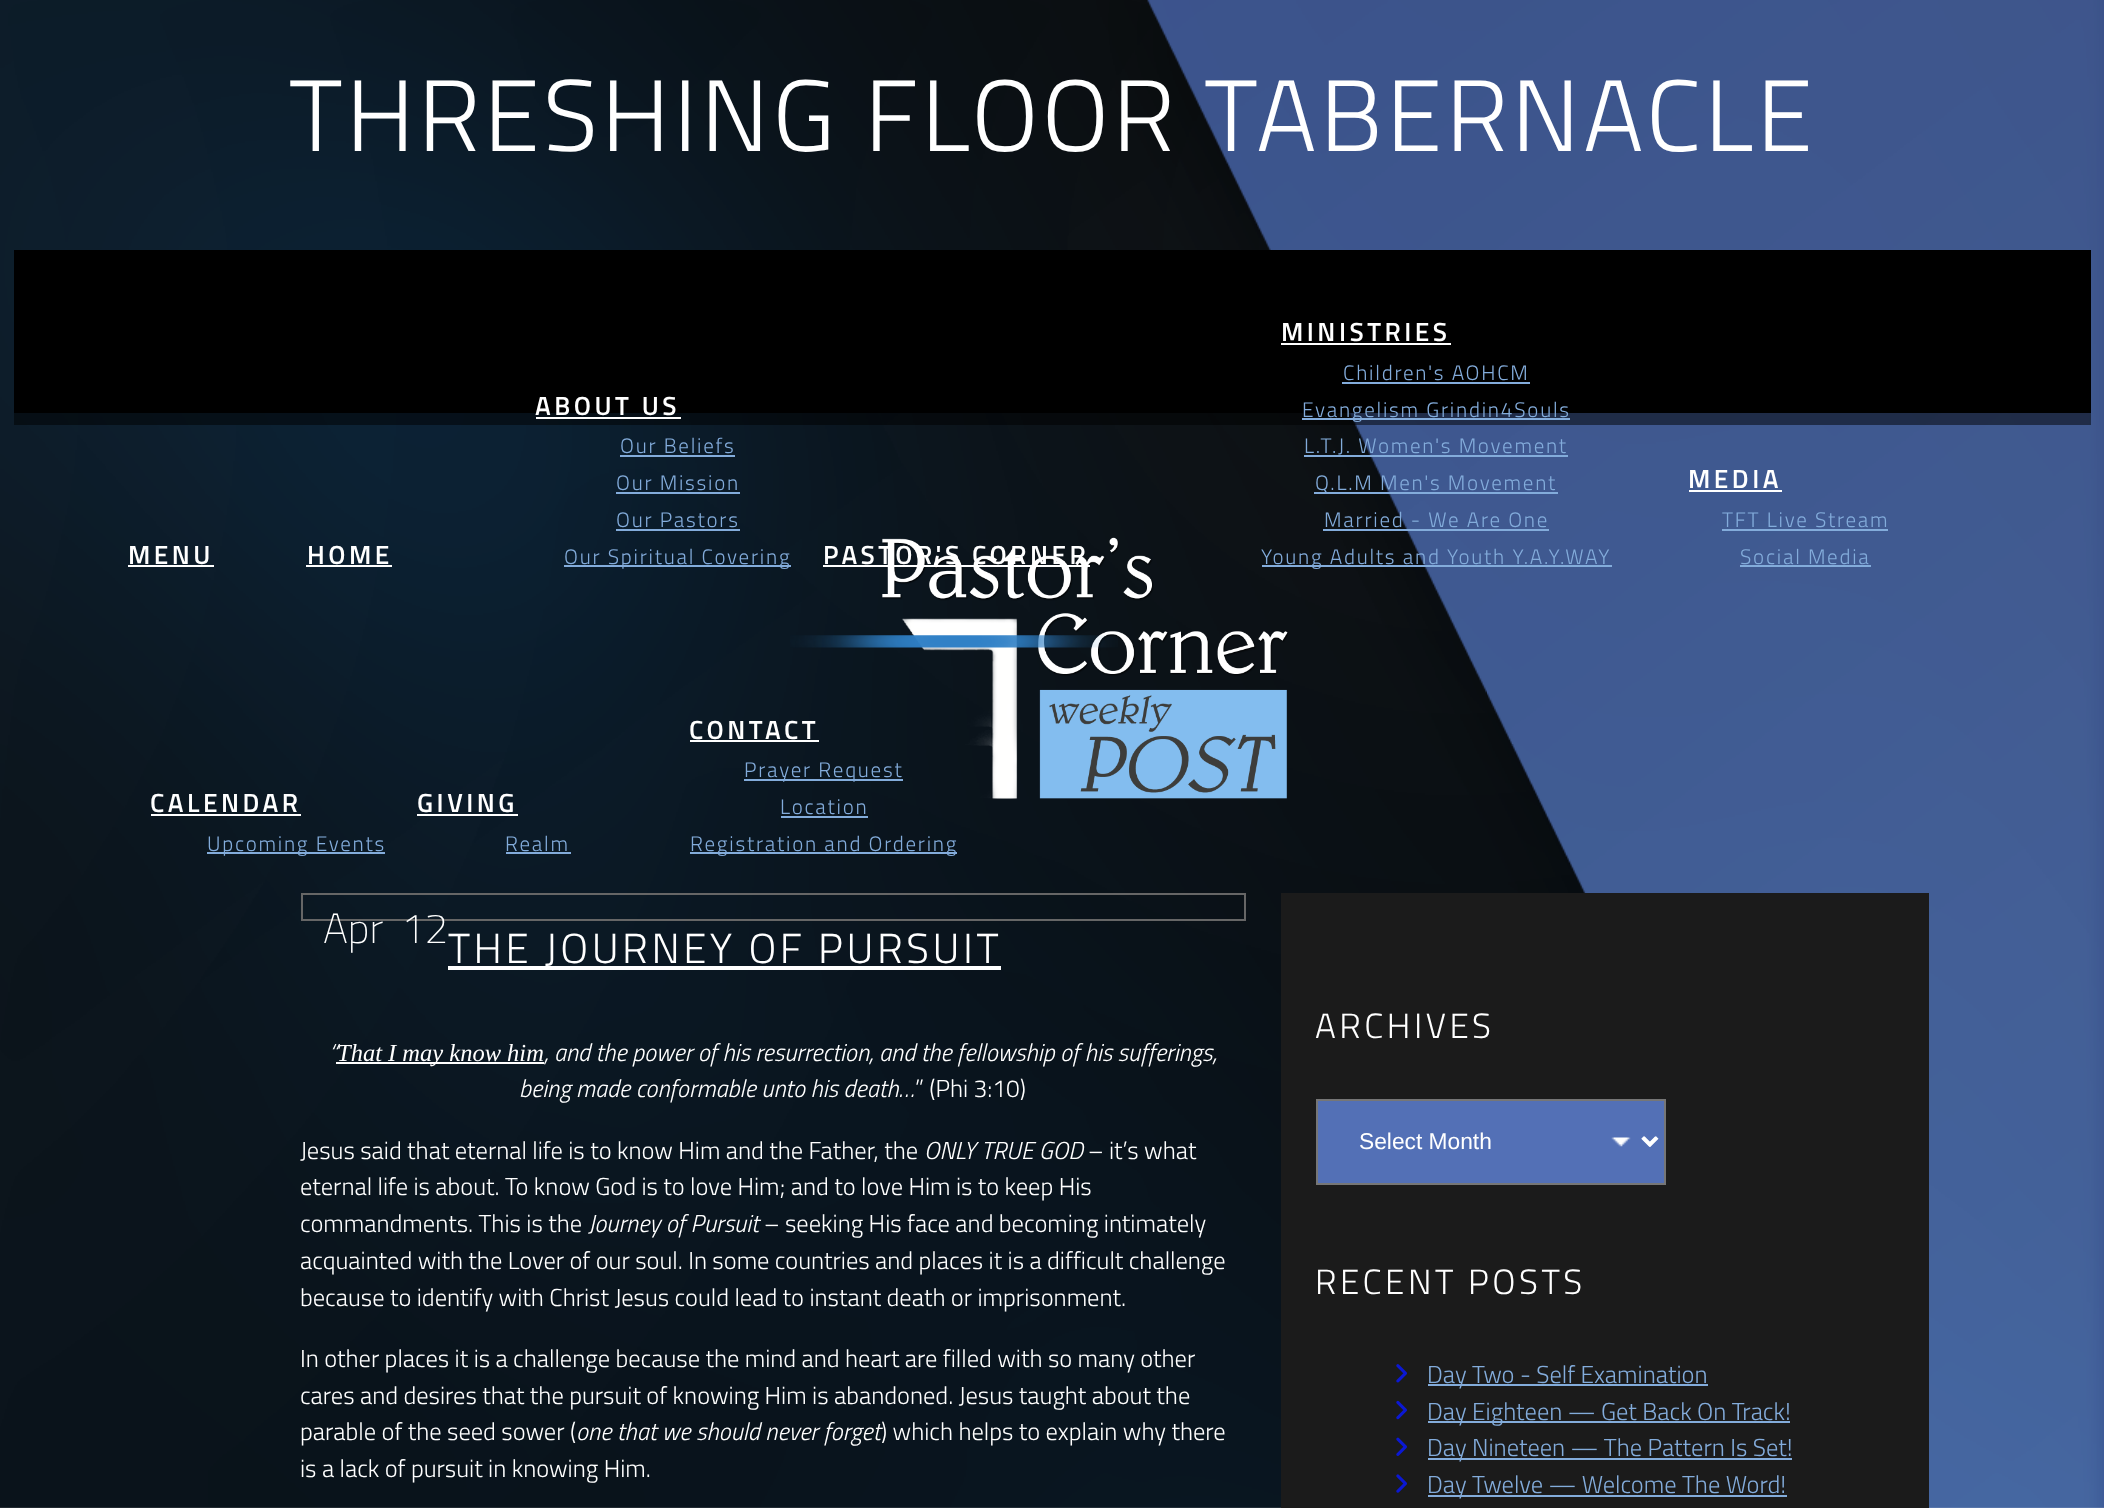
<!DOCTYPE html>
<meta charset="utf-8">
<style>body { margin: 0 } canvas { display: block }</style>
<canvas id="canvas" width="2104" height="1508"></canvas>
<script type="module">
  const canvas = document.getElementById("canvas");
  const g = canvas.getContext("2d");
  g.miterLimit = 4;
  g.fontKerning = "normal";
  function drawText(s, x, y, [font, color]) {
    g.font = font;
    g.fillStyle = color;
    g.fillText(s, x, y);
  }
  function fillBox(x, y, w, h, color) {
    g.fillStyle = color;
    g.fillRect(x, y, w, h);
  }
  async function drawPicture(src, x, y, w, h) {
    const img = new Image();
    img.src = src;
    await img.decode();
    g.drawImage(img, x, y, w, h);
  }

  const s1 = ["300 101.5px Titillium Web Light", "#FFFFFF"];
  const s2 = ["600 26.25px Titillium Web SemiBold", "#FFFFFF"];
  const s3 = ["300 21px Titillium Web Light", "#83ACDB"];
  const s4 = ["200 42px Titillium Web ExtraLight", "#FFFFFF"];
  const s5 = ["300 42px Titillium Web Light", "#FFFFFF"];
  const s6 = ["italic 300 24.5px Titillium Web Light", "#FFFFFF"];
  const s7 = ["italic 24.5px Liberation Serif", "#FFFFFF"];
  const s8 = ["300 24.5px Titillium Web Light", "#FFFFFF"];
  const s9 = ["300 35px Titillium Web Light", "#FFFFFF"];
  const s10 = ["22.75px Liberation Sans", "#FFFFFF"];
  const s11 = ["300 24.5px Titillium Web Light", "#83ACDB"];

  fillBox(0, 0, 2104, 1508, "#FFFFFF");
  await drawPicture("pic1.png", 0, 0, 2104, 1508);
  g.letterSpacing = "3.5px";
  drawText("THRESHING FLOOR TABERNACLE", 289, 151, s1);
  fillBox(14, 250, 2077, 163, "#000000");
  drawText("MENU", 128, 564, s2);
  fillBox(128, 565, 86, 2, "#FFFFFF");
  drawText("HOME", 307, 564, s2);
  fillBox(306, 565, 86, 2, "#FFFFFF");
  fillBox(14, 413, 2077, 12, "rgba(0, 0, 0, 0.5)");
  drawText("ABOUT US", 535, 415, s2);
  fillBox(536, 417, 145, 2, "#FFFFFF");
  g.letterSpacing = "1.75px";
  drawText("Our Beliefs", 620, 453, s3);
  fillBox(620, 455, 115, 2, "#83ACDB");
  drawText("Our Mission", 616, 490, s3);
  fillBox(616, 492, 124, 2, "#83ACDB");
  drawText("Our Pastors", 616, 527, s3);
  fillBox(616, 529, 124, 2, "#83ACDB");
  fillBox(564, 565, 227, 2, "#83ACDB");
  drawText("Our Spiritual Covering", 564, 564, s3);
  await drawPicture("pic3.png", 882, 537, 406, 262);
  g.letterSpacing = "3.5px";
  drawText("PASTOR'S CORNER", 823, 564, s2);
  fillBox(823, 565, 267, 2, "#FFFFFF");
  await drawPicture("pic2.png", 790, 635, 328, 13);
  drawText("MINISTRIES", 1281, 341, s2);
  fillBox(1281, 343, 170, 2, "#FFFFFF");
  g.letterSpacing = "1.75px";
  drawText("Children's AOHCM", 1343, 380, s3);
  fillBox(1342, 382, 188, 2, "#83ACDB");
  fillBox(1302, 418, 268, 2, "#83ACDB");
  drawText("Evangelism Grindin4Souls", 1302, 417, s3);
  drawText("L.T.J. Women's Movement", 1304, 453, s3);
  fillBox(1304, 455, 264, 2, "#83ACDB");
  fillBox(1314, 492, 244, 2, "#83ACDB");
  drawText("Q.L.M Men's Movement", 1315, 490, s3);
  drawText("Married - We Are One", 1324, 527, s3);
  fillBox(1323, 529, 226, 2, "#83ACDB");
  fillBox(1262, 565, 350, 2, "#83ACDB");
  drawText("Young Adults and Youth Y.A.Y.WAY", 1261, 564, s3);
  g.letterSpacing = "3.5px";
  drawText("MEDIA", 1688, 488, s2);
  fillBox(1689, 490, 93, 2, "#FFFFFF");
  g.letterSpacing = "1.75px";
  drawText("TFT Live Stream", 1722, 527, s3);
  fillBox(1722, 529, 166, 2, "#83ACDB");
  drawText("Social Media", 1740, 564, s3);
  fillBox(1740, 565, 131, 2, "#83ACDB");
  g.letterSpacing = "3.5px";
  drawText("CALENDAR", 150, 812, s2);
  fillBox(151, 814, 150, 2, "#FFFFFF");
  fillBox(207, 852, 178, 2, "#83ACDB");
  g.letterSpacing = "1.75px";
  drawText("Upcoming Events", 207, 851, s3);
  g.letterSpacing = "3.5px";
  drawText("GIVING", 417, 812, s2);
  fillBox(417, 814, 101, 2, "#FFFFFF");
  g.letterSpacing = "1.75px";
  drawText("Realm", 505, 851, s3);
  fillBox(506, 852, 65, 2, "#83ACDB");
  g.letterSpacing = "3.5px";
  drawText("CONTACT", 689, 739, s2);
  fillBox(690, 740, 129, 2, "#FFFFFF");
  fillBox(744, 779, 159, 2, "#83ACDB");
  g.letterSpacing = "1.75px";
  drawText("Prayer Request", 744, 777, s3);
  drawText("Location", 780, 814, s3);
  fillBox(781, 816, 87, 2, "#83ACDB");
  fillBox(690, 852, 267, 2, "#83ACDB");
  drawText("Registration and Ordering", 690, 851, s3);
  g.strokeStyle = "#666666";
  g.lineWidth = 2;
  g.strokeRect(302, 894, 943, 26);
  g.letterSpacing = "0px";
  drawText("Apr", 323, 943, s4);
  drawText("12", 401, 943, s4);
  g.letterSpacing = "3.5px";
  drawText("THE JOURNEY OF PURSUIT", 448, 963, s5);
  fillBox(448, 966, 553, 4, "#FFFFFF");
  g.letterSpacing = "0px";
  drawText("“", 329, 1061, s6);
  fillBox(336, 1062, 208, 2, "#FFFFFF");
  drawText("That I may know him", 337, 1061, s7);
  drawText(", and the power of his resurrection, and the fellowship of his sufferings,", 544, 1061, s6);
  drawText("being made conformable unto his death…", 519, 1097, s6);
  drawText("” (Phi 3:10)", 915, 1097, s8);
  drawText("Jesus said that eternal life is to know Him and the Father, the", 300, 1159, s8);
  drawText("ONLY TRUE GOD", 924, 1159, s6);
  drawText("– it’s what", 1088, 1159, s8);
  drawText("eternal life is about. To know God is to love Him; and to love Him is to keep His", 300, 1195, s8);
  drawText("commandments. This is the", 300, 1232, s8);
  drawText("Journey of Pursuit", 588, 1232, s6);
  drawText("– seeking His face and becoming intimately", 764, 1232, s8);
  drawText("acquainted with the Lover of our soul. In some countries and places it is a difficult challenge", 300, 1269, s8);
  drawText("because to identify with Christ Jesus could lead to instant death or imprisonment.", 300, 1306, s8);
  drawText("In other places it is a challenge because the mind and heart are filled with so many other", 300, 1367, s8);
  drawText("cares and desires that the pursuit of knowing Him is abandoned. Jesus taught about the", 300, 1404, s8);
  drawText("parable of the seed sower (", 300, 1440, s8);
  drawText("one that we should never forget", 576, 1440, s6);
  drawText(") which helps to explain why there", 881, 1440, s8);
  drawText("is a lack of pursuit in knowing Him.", 300, 1477, s8);
  fillBox(1281, 893, 648, 615, "#1B1B1B");
  g.letterSpacing = "3.5px";
  drawText("ARCHIVES", 1315, 1038, s9);
  fillBox(1318, 1101, 346, 82, "#5370B6");
  await drawPicture("pic4.png", 1611, 1136, 48, 11);
  g.strokeStyle = "#767676";
  g.strokeRect(1317, 1100, 348, 84);
  g.beginPath();
  g.moveTo(1642.5, 1137.5);
  g.lineTo(1649.5, 1144.5);
  g.lineTo(1656.5, 1137.5);
  g.strokeStyle = "#FFFFFF";
  g.lineWidth = 3.5;
  g.stroke();
  g.letterSpacing = "0px";
  drawText("Select Month", 1359, 1149, s10);
  g.letterSpacing = "3.5px";
  drawText("RECENT POSTS", 1315, 1294, s9);
  await drawPicture("pic5.png", 1396, 1364, 11, 19);
  fillBox(1428, 1384, 280, 2, "#83ACDB");
  g.letterSpacing = "0px";
  drawText("Day Two - Self Examination", 1427, 1383, s11);
  await drawPicture("pic6.png", 1396, 1400, 11, 20);
  fillBox(1428, 1421, 362, 2, "#83ACDB");
  drawText("Day Eighteen — Get Back On Track!", 1427, 1420, s11);
  await drawPicture("pic7.png", 1396, 1437, 11, 19);
  fillBox(1428, 1458, 364, 2, "#83ACDB");
  drawText("Day Nineteen — The Pattern Is Set!", 1427, 1456, s11);
  await drawPicture("pic8.png", 1396, 1474, 11, 19);
  fillBox(1428, 1495, 359, 2, "#83ACDB");
  drawText("Day Twelve — Welcome The Word!", 1427, 1493, s11);
</script>
